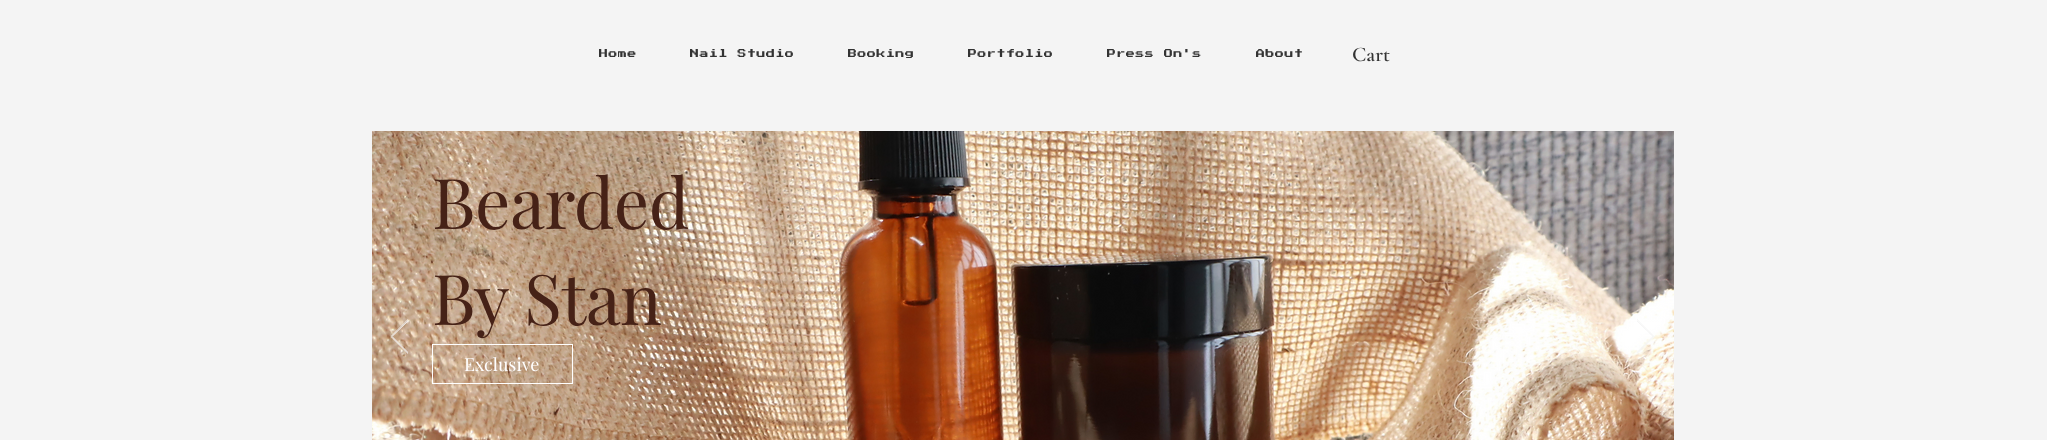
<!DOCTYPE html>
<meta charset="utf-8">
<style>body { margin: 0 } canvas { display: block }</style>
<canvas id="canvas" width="2047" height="440"></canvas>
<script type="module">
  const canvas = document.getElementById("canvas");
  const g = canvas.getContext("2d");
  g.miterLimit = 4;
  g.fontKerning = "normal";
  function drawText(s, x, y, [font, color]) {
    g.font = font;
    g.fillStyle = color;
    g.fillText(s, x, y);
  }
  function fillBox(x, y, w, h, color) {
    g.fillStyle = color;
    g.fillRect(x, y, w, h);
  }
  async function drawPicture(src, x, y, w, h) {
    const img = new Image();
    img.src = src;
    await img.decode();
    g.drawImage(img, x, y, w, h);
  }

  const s1 = ["9px 'Press Start 2P'", "#333333"];
  const s2 = ["600 21px Cormorant Garamond", "#333333"];
  const s3 = ["70px Playfair Display", "#462217"];
  const s4 = ["18px Playfair Display", "#FFFFFF"];

  fillBox(0, 0, 2047, 440, "#F4F4F4");
  g.letterSpacing = "0.5px";
  drawText("Home", 599, 58, s1);
  drawText("Nail Studio", 690, 58, s1);
  drawText("Booking", 848, 58, s1);
  drawText("Portfolio", 968, 58, s1);
  drawText("Press On's", 1107, 58, s1);
  drawText("About", 1256, 58, s1);
  g.letterSpacing = "0px";
  drawText("Cart", 1352, 61, s2);
  await drawPicture("pic1.png", 372, 131, 1302, 309);
  g.save();
  g.beginPath();
  g.rect(391, 319, 17, 36);
  g.clip();
  g.beginPath();
  g.moveTo(408.5, 354);
  g.lineTo(391, 336.5);
  g.lineTo(408.5, 319);
  g.lineTo(409, 320);
  g.lineTo(392, 336.5);
  g.lineTo(409, 353.5);
  g.closePath();
  g.strokeStyle = "#F4F4F4";
  g.lineWidth = 0.9;
  g.stroke();
  g.restore();
  g.letterSpacing = "-0.5px";
  drawText("Bearded", 432, 229, s3);
  drawText("By Stan", 432, 325, s3);
  g.strokeStyle = "#FFFFFF";
  g.strokeRect(432.5, 344.5, 140, 39);
  g.letterSpacing = "0px";
  drawText("Exclusive", 464, 371, s4);
  g.save();
  g.beginPath();
  g.rect(1637, 319, 18, 36);
  g.clip();
  g.beginPath();
  g.moveTo(1636.5, 354);
  g.lineTo(1654, 336.5);
  g.lineTo(1636.5, 319);
  g.lineTo(1636, 320);
  g.lineTo(1653, 336.5);
  g.lineTo(1636, 353.5);
  g.closePath();
  g.strokeStyle = "#F4F4F4";
  g.lineWidth = 0.9;
  g.stroke();
  g.restore();
</script>
